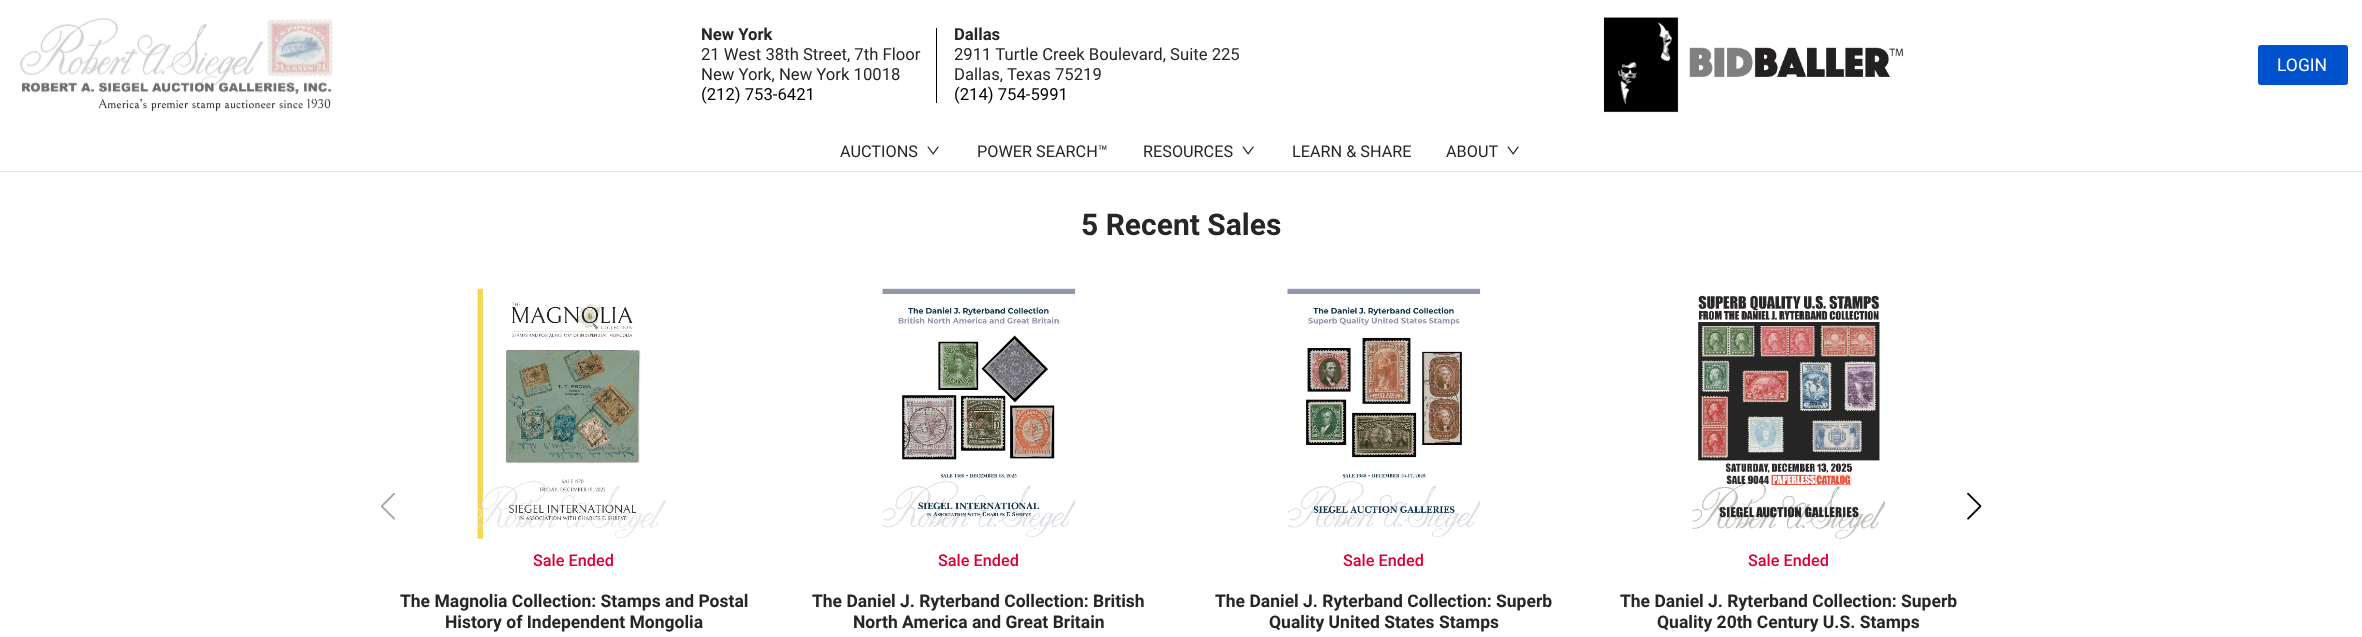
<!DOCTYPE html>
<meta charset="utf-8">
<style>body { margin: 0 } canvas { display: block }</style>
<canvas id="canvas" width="2362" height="637"></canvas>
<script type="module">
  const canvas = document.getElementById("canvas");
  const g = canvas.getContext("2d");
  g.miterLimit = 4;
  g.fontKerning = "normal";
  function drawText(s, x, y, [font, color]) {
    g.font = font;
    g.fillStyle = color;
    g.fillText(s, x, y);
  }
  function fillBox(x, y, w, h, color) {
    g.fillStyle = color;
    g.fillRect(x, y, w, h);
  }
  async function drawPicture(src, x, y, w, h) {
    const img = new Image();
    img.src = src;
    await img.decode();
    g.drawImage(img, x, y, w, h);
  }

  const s1 = ["bold 16.7px Roboto", "#262626"];
  const s2 = ["16.7px Roboto", "#262626"];
  const s3 = ["16.7px Roboto", "#000000"];
  const s4 = ["17.5px Roboto", "#FFFFFF"];
  const s5 = ["16.25px Roboto", "#262626"];
  const s6 = ["bold 30px Roboto", "#262626"];
  const s7 = ["500 16.25px Roboto", "#DE0037"];
  const s8 = ["bold 17.5px Roboto", "#262626"];

  fillBox(0, 0, 2362, 637, "#FFFFFF");
  fillBox(0, 171, 2362, 1, "#E6E6E6");
  await drawPicture("pic1.png", 20, 18, 313, 94);
  drawText("New York", 701, 40, s1);
  drawText("21 West 38th Street, 7th Floor", 701, 60, s2);
  drawText("New York, New York 10018", 701, 80, s2);
  drawText("(212) 753-6421", 701, 100, s3);
  fillBox(936, 28, 1, 75, "#000000");
  drawText("Dallas", 954, 40, s1);
  drawText("2911 Turtle Creek Boulevard, Suite 225", 954, 60, s2);
  drawText("Dallas, Texas 75219", 954, 80, s2);
  drawText("(214) 754-5991", 954, 100, s3);
  await drawPicture("pic2.png", 1603, 17, 301, 96);
  g.fillStyle = "#0052CC";
  g.beginPath();
  g.roundRect(2258.5, 45.5, 89, 39, 2);
  g.fill();
  g.strokeStyle = "#0052CC";
  g.stroke();
  drawText("LOGIN", 2277, 71, s4);
  drawText("AUCTIONS", 840, 157, s5);
  await drawPicture("pic3.png", 927, 146, 12, 9);
  drawText("POWER SEARCH™", 977, 157, s5);
  drawText("RESOURCES", 1143, 157, s5);
  await drawPicture("pic3.png", 1242, 146, 12, 9);
  drawText("LEARN & SHARE", 1292, 157, s5);
  drawText("ABOUT", 1446, 157, s5);
  await drawPicture("pic3.png", 1507, 146, 12, 9);
  drawText("5 Recent Sales", 1081, 235, s6);
  await drawPicture("pic4.png", 381, 492, 14, 28);
  await drawPicture("pic5.png", 1967, 492, 15, 28);
  await drawPicture("pic6.png", 477, 288, 189, 251);
  drawText("Sale Ended", 533, 566, s7);
  drawText("The Magnolia Collection: Stamps and Postal", 400, 607, s8);
  drawText("History of Independent Mongolia", 445, 628, s8);
  await drawPicture("pic7.png", 882, 288, 194, 249);
  drawText("Sale Ended", 938, 566, s7);
  drawText("The Daniel J. Ryterband Collection: British", 812, 607, s8);
  drawText("North America and Great Britain", 853, 628, s8);
  await drawPicture("pic8.png", 1287, 288, 194, 250);
  drawText("Sale Ended", 1343, 566, s7);
  drawText("The Daniel J. Ryterband Collection: Superb", 1215, 607, s8);
  drawText("Quality United States Stamps", 1269, 628, s8);
  await drawPicture("pic9.png", 1692, 295, 193, 244);
  drawText("Sale Ended", 1748, 566, s7);
  drawText("The Daniel J. Ryterband Collection: Superb", 1620, 607, s8);
  drawText("Quality 20th Century U.S. Stamps", 1657, 628, s8);
</script>
